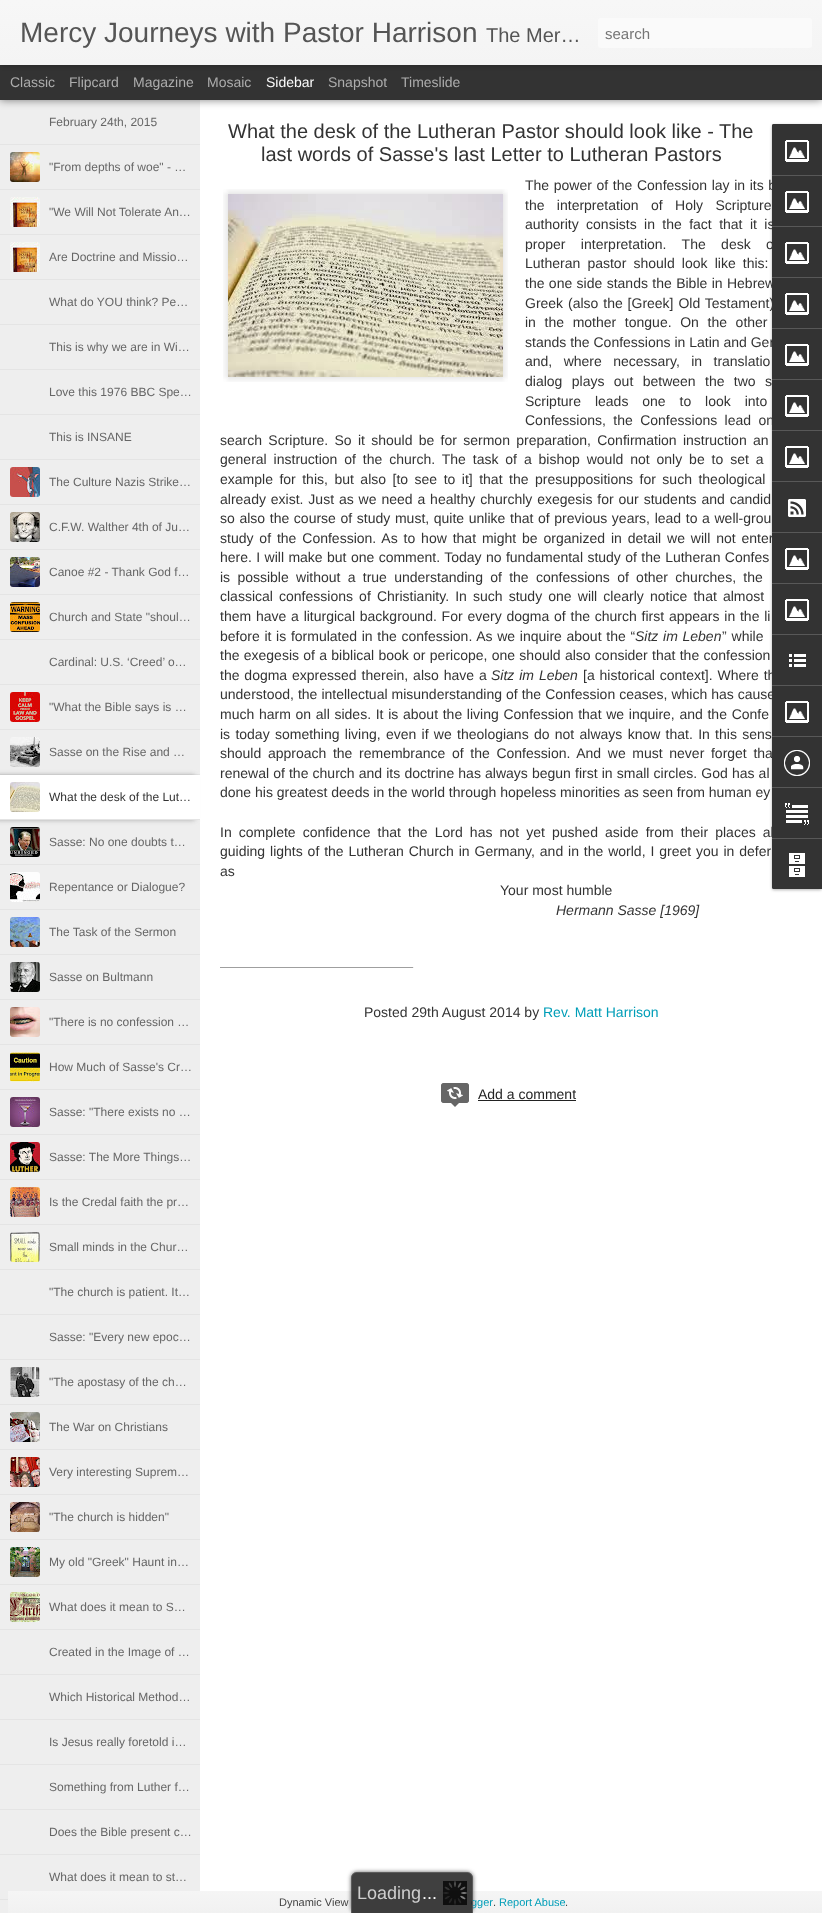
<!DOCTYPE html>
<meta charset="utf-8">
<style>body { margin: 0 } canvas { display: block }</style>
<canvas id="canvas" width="822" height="1913"></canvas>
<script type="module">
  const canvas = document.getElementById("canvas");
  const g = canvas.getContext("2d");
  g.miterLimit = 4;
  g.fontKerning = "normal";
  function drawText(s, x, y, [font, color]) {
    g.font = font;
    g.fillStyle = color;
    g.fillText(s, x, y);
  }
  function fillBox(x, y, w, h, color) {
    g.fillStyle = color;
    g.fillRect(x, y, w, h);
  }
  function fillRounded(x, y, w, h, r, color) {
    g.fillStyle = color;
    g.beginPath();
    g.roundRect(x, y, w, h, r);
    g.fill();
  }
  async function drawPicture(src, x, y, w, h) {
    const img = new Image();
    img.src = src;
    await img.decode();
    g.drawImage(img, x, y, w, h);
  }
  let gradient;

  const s1 = ["28px Liberation Sans", "#555555"];
  const s2 = ["20px Liberation Sans", "#555555"];
  const s3 = ["15px Liberation Sans", "#757575"];
  const s4 = ["14px Liberation Sans", "#ADADAD"];
  const s5 = ["14px Liberation Sans", "#FCFCFC"];
  const s6 = ["12px Liberation Sans", "#666666"];
  const s7 = ["12px Liberation Sans", "#333333"];
  const s8 = ["20px Liberation Sans", "#333333"];
  const s9 = ["14px Liberation Sans", "#333333"];
  const s10 = ["italic 14px Liberation Sans", "#333333"];
  const s11 = ["14px Liberation Sans", "#009EB8"];
  const s12 = ["14px Liberation Sans", "#222222"];
  const s13 = ["11px Liberation Sans", "#009EB8"];
  const s14 = ["18px Liberation Sans", "#CECECE"];
  const s15 = ["18px Liberation Sans", "#FCFCFC"];
  const s16 = ["11px Liberation Sans", "#444444"];

  fillBox(0, 0, 822, 1913, "#FFFFFF");
  fillBox(0, 100, 200, 1813, "#EEEEEE");
  g.fillStyle = "rgba(0, 0, 0, 0.5)";
  g.filter = "blur(4px)";
  g.beginPath();
  g.rect(0, 65, 822, 35);
  g.fill();
  g.filter = "none";
  fillBox(0, 65, 822, 35, "#333333");
  g.fillStyle = "rgba(0, 0, 0, 0.3)";
  g.filter = "blur(2.5px)";
  g.beginPath();
  g.rect(0, 0, 822, 65);
  g.fill();
  g.filter = "none";
  gradient = g.createLinearGradient(0, 0, 0, 65);
  gradient.addColorStop(0, "#F7F7F7");
  gradient.addColorStop(1, "#F4F4F4");
  g.fillStyle = gradient;
  g.fillRect(0, 0, 822, 65);
  drawText("Mercy Journeys with Pastor Harrison", 20, 42, s1);
  drawText("The Mer…", 486, 42, s2);
  fillRounded(598, 18, 214, 30, 3, "#FAFAFA");
  drawText("search", 605, 39, s3);
  drawText("Classic", 10, 87, s4);
  drawText("Flipcard", 69, 87, s4);
  drawText("Magazine", 133, 87, s4);
  drawText("Mosaic", 207, 87, s4);
  drawText("Sidebar", 266, 87, s5);
  drawText("Snapshot", 328, 87, s4);
  drawText("Timeslide", 401, 87, s4);
  fillBox(0, 144, 200, 1, "#E4E4E4");
  drawText("February 24th, 2015", 49, 126, s6);
  fillBox(0, 189, 200, 1, "#E4E4E4");
  await drawPicture("pic1.png", 10, 152, 30, 30);
  drawText("\"From depths of woe\" - …", 49, 171, s6);
  fillBox(0, 234, 200, 1, "#E4E4E4");
  await drawPicture("pic2.png", 10, 197, 30, 30);
  drawText("\"We Will Not Tolerate An…", 49, 216, s6);
  fillBox(0, 279, 200, 1, "#E4E4E4");
  await drawPicture("pic2.png", 10, 242, 30, 30);
  drawText("Are Doctrine and Missio…", 49, 261, s6);
  fillBox(0, 324, 200, 1, "#E4E4E4");
  drawText("What do YOU think? Pe…", 49, 306, s6);
  fillBox(0, 369, 200, 1, "#E4E4E4");
  drawText("This is why we are in Wi…", 49, 351, s6);
  fillBox(0, 414, 200, 1, "#E4E4E4");
  drawText("Love this 1976 BBC Spe…", 49, 396, s6);
  fillBox(0, 459, 200, 1, "#E4E4E4");
  drawText("This is INSANE", 49, 441, s6);
  fillBox(0, 504, 200, 1, "#E4E4E4");
  await drawPicture("pic3.png", 10, 467, 30, 30);
  drawText("The Culture Nazis Strike…", 49, 486, s6);
  fillBox(0, 549, 200, 1, "#E4E4E4");
  await drawPicture("pic4.png", 10, 512, 30, 30);
  drawText("C.F.W. Walther 4th of Ju…", 49, 531, s6);
  fillBox(0, 594, 200, 1, "#E4E4E4");
  await drawPicture("pic5.png", 10, 557, 30, 30);
  drawText("Canoe #2 - Thank God f…", 49, 576, s6);
  fillBox(0, 639, 200, 1, "#E4E4E4");
  await drawPicture("pic6.png", 10, 602, 30, 30);
  drawText("Church and State \"shoul…", 49, 621, s6);
  fillBox(0, 684, 200, 1, "#E4E4E4");
  drawText("Cardinal: U.S. ‘Creed’ o…", 49, 666, s6);
  fillBox(0, 729, 200, 1, "#E4E4E4");
  await drawPicture("pic7.png", 10, 692, 30, 30);
  drawText("\"What the Bible says is …", 49, 711, s6);
  fillBox(0, 774, 200, 1, "#E4E4E4");
  await drawPicture("pic8.png", 10, 737, 30, 30);
  drawText("Sasse on the Rise and …", 49, 756, s6);
  await drawPicture("pic10.png", 10, 827, 30, 30);
  g.fillStyle = "#AAAAAA";
  g.filter = "blur(2.5px)";
  g.beginPath();
  g.rect(-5, 775, 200, 45);
  g.fill();
  g.filter = "none";
  fillBox(0, 775, 200, 44, "#FFFFFF");
  fillBox(0, 819, 200, 1, "#E4E4E4");
  await drawPicture("pic9.png", 10, 782, 30, 30);
  drawText("What the desk of the Lut…", 49, 801, s7);
  fillBox(0, 864, 200, 1, "#E4E4E4");
  drawText("Sasse: No one doubts t…", 49, 846, s6);
  fillBox(0, 909, 200, 1, "#E4E4E4");
  await drawPicture("pic11.png", 10, 872, 30, 30);
  drawText("Repentance or Dialogue?", 49, 891, s6);
  fillBox(0, 954, 200, 1, "#E4E4E4");
  await drawPicture("pic12.png", 10, 917, 30, 30);
  drawText("The Task of the Sermon", 49, 936, s6);
  fillBox(0, 999, 200, 1, "#E4E4E4");
  await drawPicture("pic13.png", 10, 962, 30, 30);
  drawText("Sasse on Bultmann", 49, 981, s6);
  fillBox(0, 1044, 200, 1, "#E4E4E4");
  await drawPicture("pic14.png", 10, 1007, 30, 30);
  drawText("\"There is no confession …", 49, 1026, s6);
  fillBox(0, 1089, 200, 1, "#E4E4E4");
  await drawPicture("pic15.png", 10, 1052, 30, 30);
  drawText("How Much of Sasse's Cr…", 49, 1071, s6);
  fillBox(0, 1134, 200, 1, "#E4E4E4");
  await drawPicture("pic16.png", 10, 1097, 30, 30);
  drawText("Sasse: \"There exists no …", 49, 1116, s6);
  fillBox(0, 1179, 200, 1, "#E4E4E4");
  await drawPicture("pic17.png", 10, 1142, 30, 30);
  drawText("Sasse: The More Things…", 49, 1161, s6);
  fillBox(0, 1224, 200, 1, "#E4E4E4");
  await drawPicture("pic18.png", 10, 1187, 30, 30);
  drawText("Is the Credal faith the pr…", 49, 1206, s6);
  fillBox(0, 1269, 200, 1, "#E4E4E4");
  await drawPicture("pic19.png", 10, 1232, 30, 30);
  drawText("Small minds in the Chur…", 49, 1251, s6);
  fillBox(0, 1314, 200, 1, "#E4E4E4");
  drawText("\"The church is patient. It…", 49, 1296, s6);
  fillBox(0, 1359, 200, 1, "#E4E4E4");
  drawText("Sasse: \"Every new epoc…", 49, 1341, s6);
  fillBox(0, 1404, 200, 1, "#E4E4E4");
  await drawPicture("pic20.png", 10, 1367, 30, 30);
  drawText("\"The apostasy of the ch…", 49, 1386, s6);
  fillBox(0, 1449, 200, 1, "#E4E4E4");
  await drawPicture("pic21.png", 10, 1412, 30, 30);
  drawText("The War on Christians", 49, 1431, s6);
  fillBox(0, 1494, 200, 1, "#E4E4E4");
  await drawPicture("pic22.png", 10, 1457, 30, 30);
  drawText("Very interesting Suprem…", 49, 1476, s6);
  fillBox(0, 1539, 200, 1, "#E4E4E4");
  await drawPicture("pic23.png", 10, 1502, 30, 30);
  drawText("\"The church is hidden\"", 49, 1521, s6);
  fillBox(0, 1584, 200, 1, "#E4E4E4");
  await drawPicture("pic24.png", 10, 1547, 30, 30);
  drawText("My old \"Greek\" Haunt in…", 49, 1566, s6);
  fillBox(0, 1629, 200, 1, "#E4E4E4");
  await drawPicture("pic25.png", 10, 1592, 30, 30);
  drawText("What does it mean to S…", 49, 1611, s6);
  fillBox(0, 1674, 200, 1, "#E4E4E4");
  drawText("Created in the Image of …", 49, 1656, s6);
  fillBox(0, 1719, 200, 1, "#E4E4E4");
  drawText("Which Historical Method…", 49, 1701, s6);
  fillBox(0, 1764, 200, 1, "#E4E4E4");
  drawText("Is Jesus really foretold i…", 49, 1746, s6);
  fillBox(0, 1809, 200, 1, "#E4E4E4");
  drawText("Something from Luther f…", 49, 1791, s6);
  fillBox(0, 1854, 200, 1, "#E4E4E4");
  drawText("Does the Bible present c…", 49, 1836, s6);
  fillBox(0, 1899, 8, 1, "#E4E4E4");
  drawText("What does it mean to st…", 49, 1881, s6);
  drawText("What the desk of the Lutheran Pastor should look like - The", 228, 138, s8);
  drawText("last words of Sasse's last Letter to Lutheran Pastors", 261, 161, s8);
  g.wordSpacing = "0.75px";
  drawText("The power of the Confession lay in its b", 525, 190, s9);
  g.wordSpacing = "8.5px";
  drawText("the interpretation of Holy Scripture", 525, 210, s9);
  g.wordSpacing = "3.5px";
  drawText("authority consists in the fact that it is", 525, 229, s9);
  g.wordSpacing = "11.5px";
  drawText("proper interpretation. The desk o", 525, 249, s9);
  g.wordSpacing = "3.25px";
  drawText("Lutheran pastor should look like this:", 525, 268, s9);
  g.wordSpacing = "0.5px";
  drawText("the one side stands the Bible in Hebrew", 525, 288, s9);
  g.wordSpacing = "1px";
  drawText("Greek (also the [Greek] Old Testament)", 525, 308, s9);
  g.wordSpacing = "4.75px";
  drawText("in the mother tongue. On the other", 525, 327, s9);
  g.wordSpacing = "0px";
  drawText("stands the Confessions in Latin and Ger", 525, 347, s9);
  g.wordSpacing = "7.5px";
  drawText("and, where necessary, in translatio", 525, 366, s9);
  g.wordSpacing = "5.5px";
  drawText("dialog plays out between the two s", 525, 386, s9);
  g.wordSpacing = "10px";
  drawText("Scripture leads one to look into", 525, 406, s9);
  g.wordSpacing = "3.5px";
  drawText("Confessions, the Confessions lead on", 525, 425, s9);
  g.wordSpacing = "2.4px";
  drawText("search Scripture. So it should be for sermon preparation, Confirmation instruction an", 220, 445, s9);
  g.wordSpacing = "3px";
  drawText("general instruction of the church. The task of a bishop would not only be to set a", 220, 464, s9);
  g.wordSpacing = "2.6px";
  drawText("example for this, but also [to see to it] that the presuppositions for such theological", 220, 484, s9);
  g.wordSpacing = "1px";
  drawText("already exist. Just as we need a healthy churchly exegesis for our students and candid", 220, 504, s9);
  g.wordSpacing = "0.75px";
  drawText("so also the course of study must, quite unlike that of previous years, lead to a well-grou", 220, 523, s9);
  g.wordSpacing = "2px";
  drawText("study of the Confession. As to how that might be organized in detail we will not enter", 220, 543, s9);
  g.wordSpacing = "0.5px";
  drawText("here. I will make but one comment. Today no fundamental study of the Lutheran Confes", 220, 562, s9);
  g.wordSpacing = "3.4px";
  drawText("is possible without a true understanding of the confessions of other churches, the", 220, 582, s9);
  g.wordSpacing = "2.25px";
  drawText("classical confessions of Christianity. In such study one will clearly notice that almost", 220, 601, s9);
  g.wordSpacing = "0.9px";
  drawText("them have a liturgical background. For every dogma of the church first appears in the li", 220, 621, s9);
  g.wordSpacing = "0.8px";
  drawText("before it is formulated in the confession. As we inquire about the “", 220, 641, s9);
  drawText("Sitz im Leben", 635, 641, s10);
  g.wordSpacing = "1px";
  drawText("” while", 722, 641, s9);
  g.wordSpacing = "0.4px";
  drawText("the exegesis of a biblical book or pericope, one should also consider that the confession", 220, 660, s9);
  g.wordSpacing = "1px";
  drawText("the dogma expressed therein, also have a", 220, 680, s9);
  drawText("Sitz im Leben", 491, 680, s10);
  drawText("[a historical context]. Where th", 583, 680, s9);
  g.wordSpacing = "0.1px";
  drawText("understood, the intellectual misunderstanding of the Confession ceases, which has cause", 220, 699, s9);
  g.wordSpacing = "0.8px";
  drawText("much harm on all sides. It is about the living Confession that we inquire, and the Confe", 220, 719, s9);
  g.wordSpacing = "1.4px";
  drawText("is today something living, even if we theologians do not always know that. In this sens", 220, 739, s9);
  g.wordSpacing = "2.75px";
  drawText("should approach the remembrance of the Confession. And we must never forget tha", 220, 758, s9);
  g.wordSpacing = "0.25px";
  drawText("renewal of the church and its doctrine has always begun first in small circles. God has al", 220, 778, s9);
  g.wordSpacing = "0px";
  drawText("done his greatest deeds in the world through hopeless minorities as seen from human ey", 220, 797, s9);
  await drawPicture("pic26.png", 223, 189, 285, 193);
  g.wordSpacing = "3.25px";
  drawText("In complete confidence that the Lord has not yet pushed aside from their places al", 220, 837, s9);
  g.wordSpacing = "1px";
  drawText("guiding lights of the Lutheran Church in Germany, and in the world, I greet you in defer", 220, 856, s9);
  g.wordSpacing = "0px";
  drawText("as", 220, 876, s9);
  drawText("Your most humble", 500, 895, s9);
  drawText("Hermann Sasse [1969]", 556, 915, s10);
  fillBox(220, 967, 194, 1, "#9F9F9F");
  fillBox(413, 967, 1, 1, "#EEEEEE");
  drawText("Posted 29th August 2014 by", 364, 1017, s9);
  drawText("Rev. Matt Harrison", 543, 1017, s11);
  fillRounded(441, 1083, 28, 20, 3, "#666666");
  await drawPicture("pic27.png", 447, 1087, 16, 12);
  g.beginPath();
  g.roundRect(441.5, 1083.5, 27, 19, 2.5);
  g.strokeStyle = "#666666";
  g.stroke();
  g.beginPath();
  g.moveTo(450, 1102);
  g.lineTo(460, 1102);
  g.lineTo(455, 1107);
  g.closePath();
  g.fill();
  drawText("Add a comment", 478, 1099, s12);
  fillBox(478, 1100, 98, 1, "#222222");
  g.fillStyle = "rgba(0, 0, 0, 0.3)";
  g.filter = "blur(1.5px)";
  g.beginPath();
  g.roundRect(772, 125, 50, 765, 2);
  g.fill();
  g.filter = "none";
  g.fillStyle = "#333333";
  g.beginPath();
  g.roundRect(772, 124, 50, 765, [2, 0, 0, 2]);
  g.fill();
  g.beginPath();
  g.roundRect(772, 124, 50, 51, [2, 0, 0, 0]);
  g.fill();
  await drawPicture("pic28.png", 785, 140, 24, 22);
  fillBox(772, 175, 50, 1, "#585858");
  await drawPicture("pic28.png", 785, 191, 24, 22);
  fillBox(772, 226, 50, 1, "#585858");
  await drawPicture("pic28.png", 785, 242, 24, 22);
  fillBox(772, 277, 50, 1, "#585858");
  await drawPicture("pic28.png", 785, 293, 24, 22);
  fillBox(772, 328, 50, 1, "#585858");
  await drawPicture("pic28.png", 785, 344, 24, 22);
  fillBox(772, 379, 50, 1, "#585858");
  await drawPicture("pic28.png", 785, 395, 24, 22);
  fillBox(772, 430, 50, 1, "#585858");
  await drawPicture("pic28.png", 785, 446, 24, 22);
  fillBox(772, 481, 50, 1, "#585858");
  await drawPicture("pic29.png", 788, 499, 18, 18);
  fillBox(772, 532, 50, 1, "#585858");
  await drawPicture("pic28.png", 785, 548, 24, 22);
  fillBox(772, 583, 50, 1, "#585858");
  await drawPicture("pic28.png", 785, 599, 24, 22);
  fillBox(772, 634, 50, 1, "#585858");
  await drawPicture("pic30.png", 789, 654, 17, 13);
  fillBox(772, 685, 50, 1, "#585858");
  await drawPicture("pic28.png", 785, 701, 24, 22);
  fillBox(772, 736, 50, 1, "#585858");
  await drawPicture("pic31.png", 784, 750, 26, 26);
  fillBox(772, 787, 50, 1, "#585858");
  await drawPicture("pic32.png", 785, 803, 24, 22);
  g.fillStyle = "#333333";
  g.beginPath();
  g.roundRect(772, 838, 50, 51, [0, 0, 0, 2]);
  g.fill();
  fillBox(772, 838, 50, 1, "#585858");
  await drawPicture("pic33.png", 789, 853, 16, 24);
  gradient = g.createLinearGradient(424, 1891, 424, 1913);
  gradient.addColorStop(0, "#F5F5F5");
  gradient.addColorStop(1, "#F1F1F1");
  g.fillStyle = gradient;
  g.fillRect(8, 1891, 814, 22);
  g.save();
  g.beginPath();
  g.moveTo(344, 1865);
  g.lineTo(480, 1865);
  g.lineTo(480, 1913);
  g.lineTo(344, 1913);
  g.closePath();
  g.moveTo(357, 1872);
  g.lineTo(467, 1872);
  g.bezierCurveTo(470.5, 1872, 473, 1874.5, 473, 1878);
  g.lineTo(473, 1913);
  g.lineTo(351, 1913);
  g.lineTo(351, 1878);
  g.bezierCurveTo(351, 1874.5, 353.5, 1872, 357, 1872);
  g.closePath();
  g.clip("evenodd");
  g.fillStyle = "rgba(51, 51, 51, 0.75)";
  g.filter = "blur(2px)";
  g.beginPath();
  g.roundRect(351, 1872, 122, 41, 6);
  g.fill();
  g.filter = "none";
  g.restore();
  drawText("gger", 471, 1906, s13);
  g.fillStyle = "rgba(0, 0, 0, 0.75)";
  g.beginPath();
  g.roundRect(351, 1872, 122, 41, [6, 6, 0, 0]);
  g.fill();
  g.fillStyle = "rgba(102, 102, 102, 0.75)";
  g.beginPath();
  g.moveTo(357, 1872);
  g.lineTo(467, 1872);
  g.bezierCurveTo(470, 1872, 473, 1875, 473, 1878);
  g.lineTo(473, 1913);
  g.lineTo(351, 1913);
  g.lineTo(351, 1878);
  g.bezierCurveTo(351, 1875, 354, 1872, 357, 1872);
  g.closePath();
  g.moveTo(357, 1873);
  g.lineTo(467, 1873);
  g.bezierCurveTo(470, 1873, 472, 1875, 472, 1878);
  g.lineTo(472, 1913);
  g.lineTo(352, 1913);
  g.lineTo(352, 1878);
  g.bezierCurveTo(352, 1875, 354, 1873, 357, 1873);
  g.closePath();
  g.fill("evenodd");
  await drawPicture("pic34.png", 443, 1881, 24, 24);
  drawText("Loading", 357, 1899, s14);
  drawText("...", 422, 1899, s15);
  drawText("Dynamic View", 279, 1906, s16);
  drawText("Report Abuse", 499, 1906, s13);
  drawText(".", 493, 1906, s16);
  drawText(".", 565, 1906, s16);
</script>
